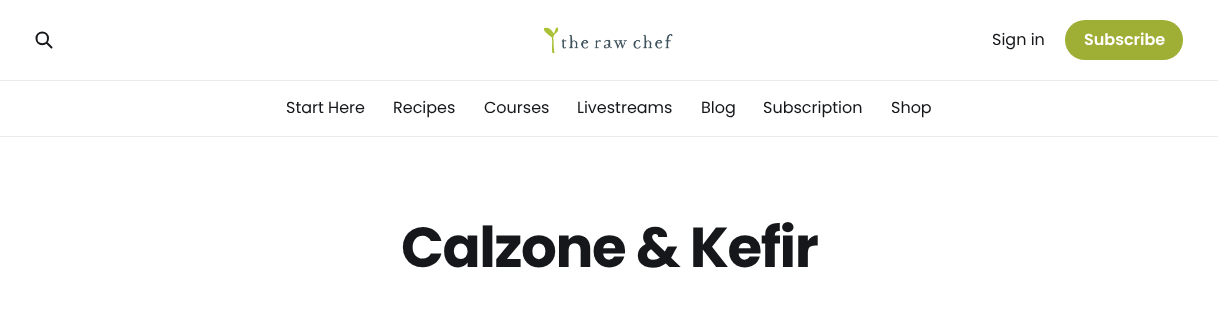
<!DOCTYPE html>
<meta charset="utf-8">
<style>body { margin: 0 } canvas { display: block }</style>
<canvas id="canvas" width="1218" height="319"></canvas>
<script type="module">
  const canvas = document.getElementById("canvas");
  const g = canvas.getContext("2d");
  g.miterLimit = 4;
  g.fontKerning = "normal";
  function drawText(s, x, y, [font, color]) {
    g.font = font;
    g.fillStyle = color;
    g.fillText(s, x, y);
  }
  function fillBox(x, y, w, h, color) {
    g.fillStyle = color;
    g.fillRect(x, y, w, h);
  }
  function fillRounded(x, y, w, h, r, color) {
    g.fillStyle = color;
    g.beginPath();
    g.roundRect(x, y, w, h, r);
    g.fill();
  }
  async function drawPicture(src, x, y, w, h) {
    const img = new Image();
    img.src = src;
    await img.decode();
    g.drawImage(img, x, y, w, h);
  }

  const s1 = ["16px Poppins", "#15171A"];
  const s2 = ["600 16px Poppins", "#FFFFFF"];
  const s3 = ["bold 56.25px Poppins", "#15171A"];

  fillBox(0, 0, 1218, 319, "#FFFFFF");
  await drawPicture("pic1.png", 543, 27, 130, 27);
  g.beginPath();
  g.moveTo(51.5, 47.5);
  g.lineTo(46.5, 42.5);
  g.closePath();
  g.moveTo(48, 38.5);
  g.bezierCurveTo(48, 46, 36.5, 46, 36.5, 38.5);
  g.bezierCurveTo(36.5, 30.5, 48, 30.5, 48, 38.5);
  g.closePath();
  g.strokeStyle = "#15171A";
  g.lineWidth = 2;
  g.lineCap = "round";
  g.lineJoin = "round";
  g.stroke();
  drawText("Sign in", 992, 45, s1);
  fillRounded(1065, 20, 118, 40, 20, "#9FAE35");
  drawText("Subscribe", 1084, 45, s2);
  fillBox(0, 80, 1218, 1, "#EBEBEB");
  drawText("Start Here", 286, 113, s1);
  drawText("Recipes", 393, 113, s1);
  drawText("Courses", 484, 113, s1);
  drawText("Livestreams", 577, 113, s1);
  drawText("Blog", 701, 113, s1);
  drawText("Subscription", 763, 113, s1);
  drawText("Shop", 891, 113, s1);
  fillBox(0, 136, 1218, 1, "#EBEBEB");
  g.letterSpacing = "-1.4px";
  drawText("Calzone & Kefir", 401, 267, s3);
</script>
